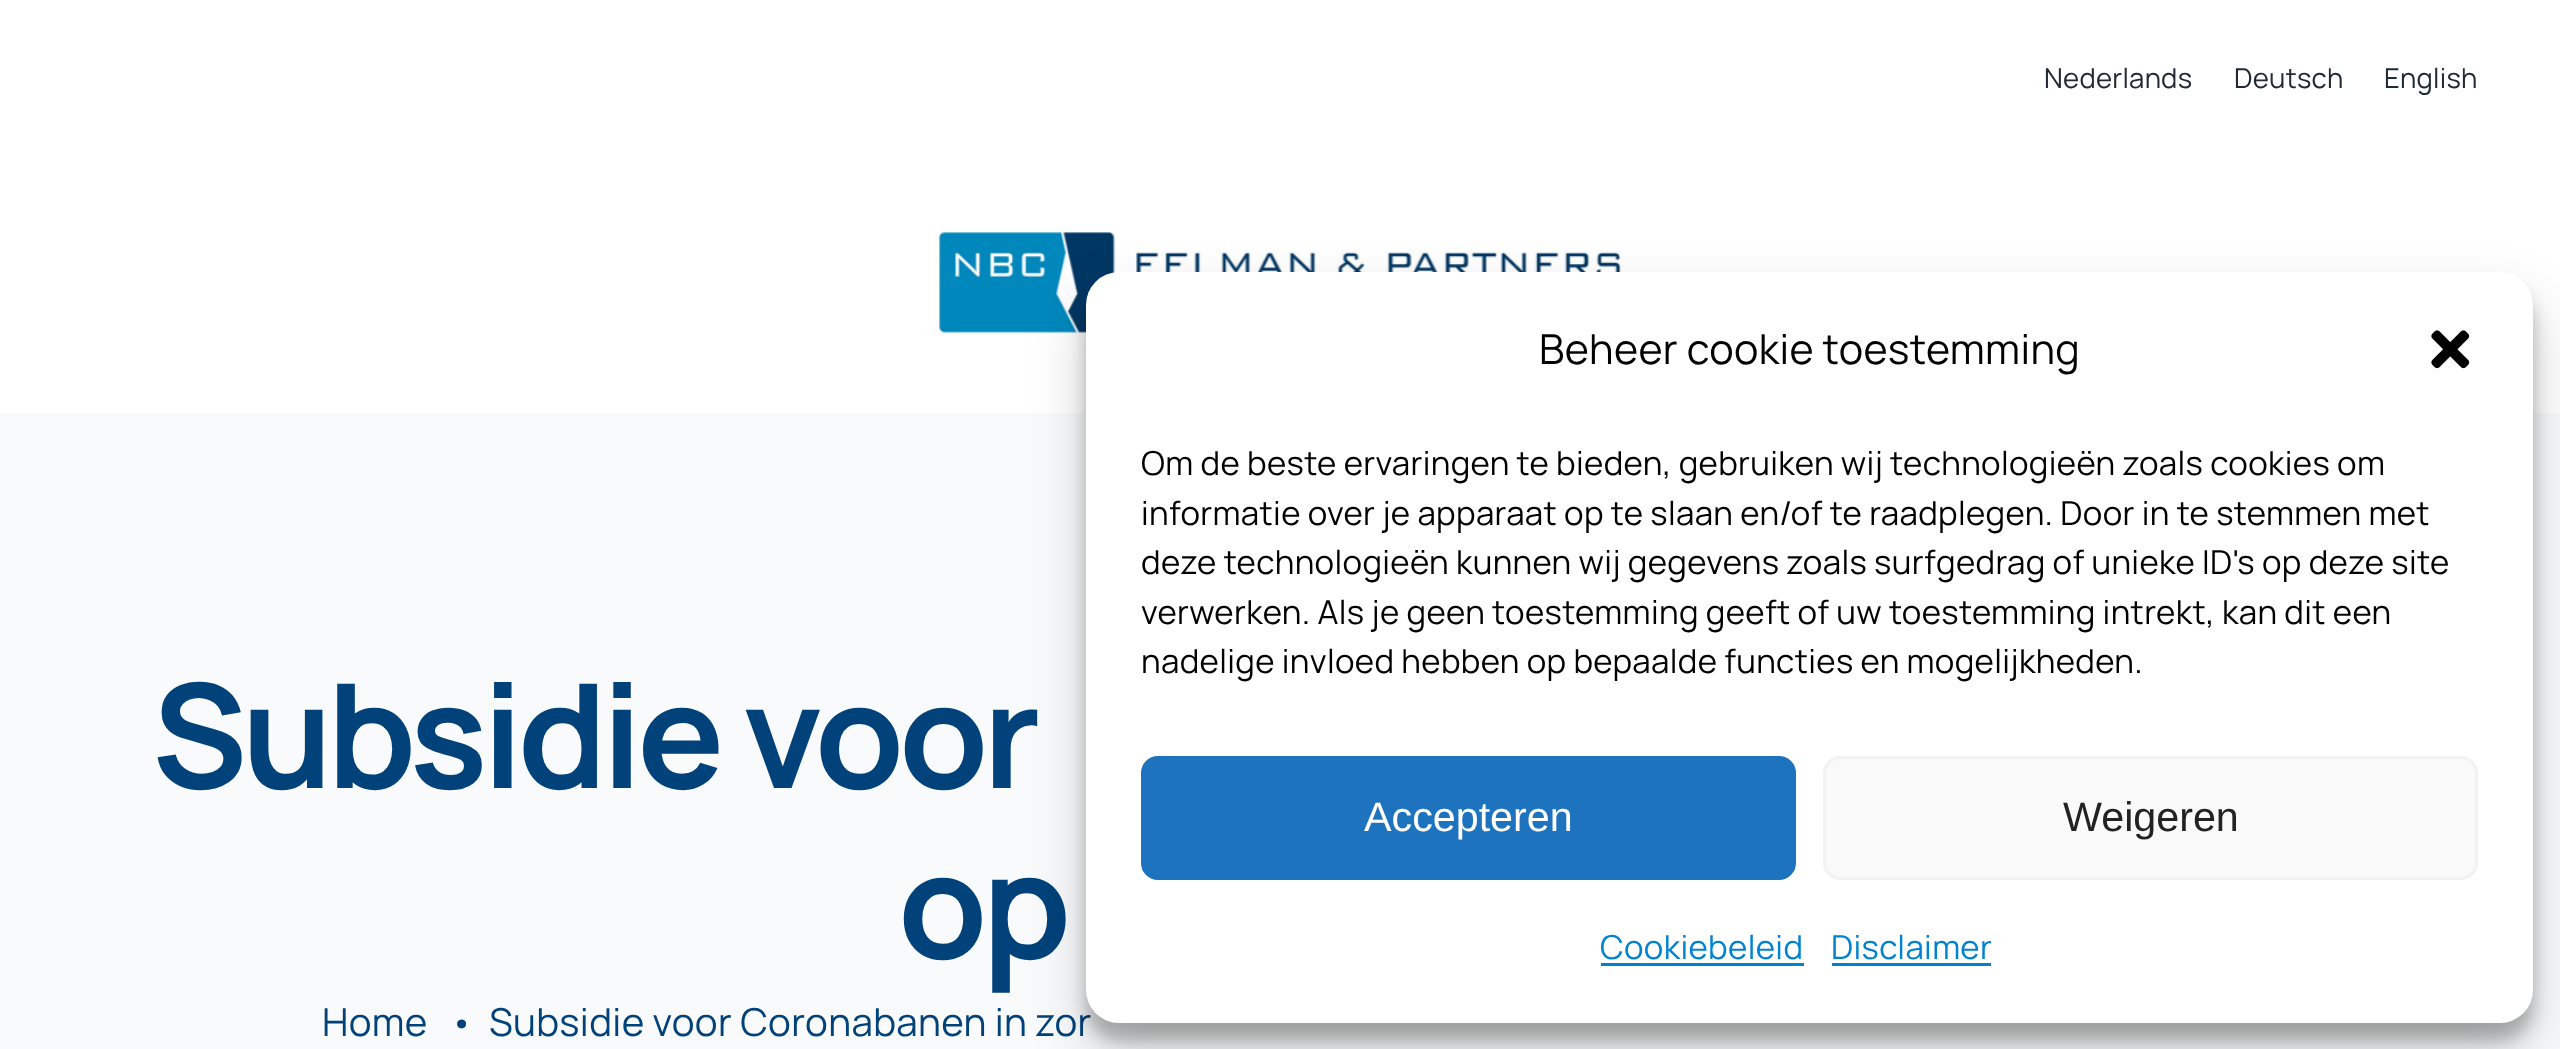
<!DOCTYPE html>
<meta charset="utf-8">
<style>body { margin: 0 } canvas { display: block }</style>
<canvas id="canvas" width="2560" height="1049"></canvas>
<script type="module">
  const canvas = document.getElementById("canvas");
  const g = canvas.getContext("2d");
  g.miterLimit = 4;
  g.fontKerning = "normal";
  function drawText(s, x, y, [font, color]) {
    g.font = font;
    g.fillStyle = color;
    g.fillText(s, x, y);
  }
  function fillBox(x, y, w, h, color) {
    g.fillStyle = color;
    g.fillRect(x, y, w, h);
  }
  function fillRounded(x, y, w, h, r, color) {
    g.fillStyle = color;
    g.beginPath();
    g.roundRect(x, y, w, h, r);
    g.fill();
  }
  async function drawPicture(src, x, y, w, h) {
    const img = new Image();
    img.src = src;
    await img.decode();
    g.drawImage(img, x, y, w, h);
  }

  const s1 = ["27.5px Manrope", "#212934"];
  const s2 = ["bold 144.75px Manrope", "#01427A"];
  const s3 = ["38.5px Manrope", "#01427A"];
  const s4 = ["41.25px Manrope", "#000000"];
  const s5 = ["33px Manrope", "#000000"];
  const s6 = ["41.25px Liberation Sans", "#FFFFFF"];
  const s7 = ["41.25px Liberation Sans", "#222222"];
  const s8 = ["33px Manrope", "#0082D3"];

  fillBox(0, 0, 2560, 1049, "#F9FAFB");
  fillBox(0, 0, 2560, 413, "#FFFFFF");
  g.letterSpacing = "0.25px";
  drawText("Nederlands", 2044, 88, s1);
  drawText("Deutsch", 2234, 88, s1);
  drawText("English", 2384, 88, s1);
  await drawPicture("pic1.png", 935, 229, 686, 106);
  g.letterSpacing = "-5.25px";
  drawText("Subsidie voor", 152, 788, s2);
  drawText("op", 898, 958, s2);
  g.letterSpacing = "0.35px";
  drawText("Home", 322, 1036, s3);
  drawText("•", 449, 1036, s3);
  drawText("Subsidie voor Coronabanen in zor", 489, 1036, s3);
  g.fillStyle = "rgba(0, 0, 0, 0.23)";
  g.filter = "blur(8px)";
  g.beginPath();
  g.roundRect(1086, 289, 1447, 751, 33);
  g.fill();
  g.filter = "none";
  g.fillStyle = "rgba(0, 0, 0, 0.19)";
  g.filter = "blur(27.5px)";
  g.beginPath();
  g.roundRect(1086, 300, 1447, 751, 33);
  g.fill();
  g.filter = "none";
  fillRounded(1086, 272, 1447, 751, 33, "#FFFFFF");
  drawText("Beheer cookie toestemming", 1539, 364, s4);
  await drawPicture("pic2.png", 2431, 330, 39, 39);
  drawText("Om de beste ervaringen te bieden, gebruiken wij technologieën zoals cookies om", 1141, 475, s5);
  drawText("informatie over je apparaat op te slaan en/of te raadplegen. Door in te stemmen met", 1141, 525, s5);
  drawText("deze technologieën kunnen wij gegevens zoals surfgedrag of unieke ID's op deze site", 1141, 574, s5);
  drawText("verwerken. Als je geen toestemming geeft of uw toestemming intrekt, kan dit een", 1141, 624, s5);
  drawText("nadelige invloed hebben op bepaalde functies en mogelijkheden.", 1141, 673, s5);
  g.fillStyle = "#1E73BE";
  g.beginPath();
  g.roundRect(1142.5, 757.5, 652, 121, 15.5);
  g.fill();
  g.strokeStyle = "#1E73BE";
  g.lineWidth = 3;
  g.stroke();
  g.letterSpacing = "0px";
  drawText("Accepteren", 1364, 831, s6);
  g.fillStyle = "#F9F9F9";
  g.beginPath();
  g.roundRect(1824.5, 757.5, 652, 121, 15.5);
  g.fill();
  g.strokeStyle = "#F2F2F2";
  g.stroke();
  drawText("Weigeren", 2063, 831, s7);
  g.letterSpacing = "0.35px";
  drawText("Cookiebeleid", 1600, 959, s8);
  fillBox(1601, 963, 203, 3, "#0082D3");
  drawText("Disclaimer", 1831, 959, s8);
  fillBox(1832, 963, 159, 3, "#0082D3");
</script>
